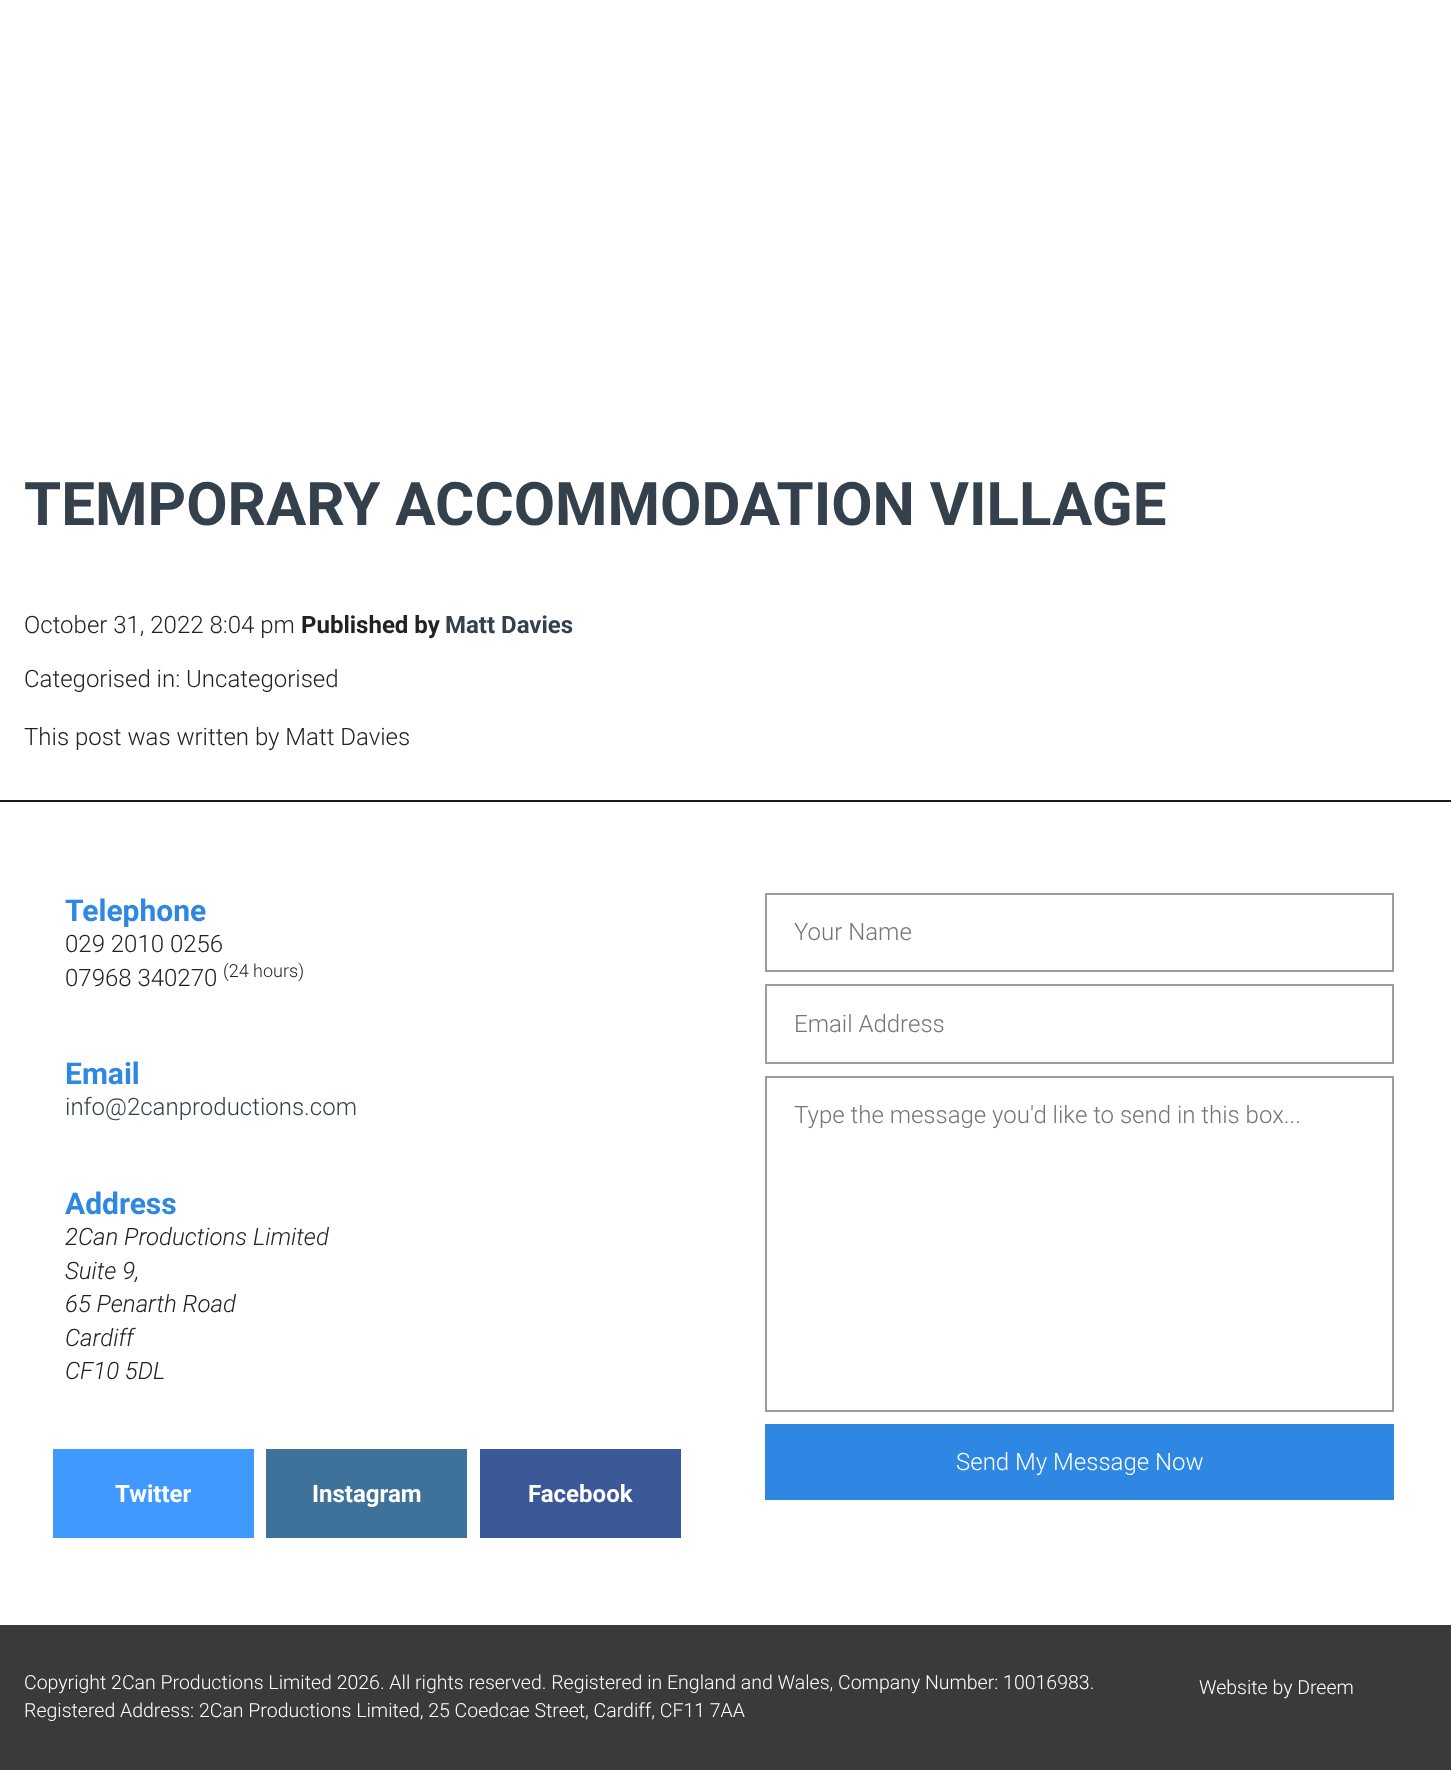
<!DOCTYPE html>
<meta charset="utf-8">
<style>body { margin: 0 } canvas { display: block }</style>
<canvas id="canvas" width="1451" height="1770"></canvas>
<script type="module">
  const canvas = document.getElementById("canvas");
  const g = canvas.getContext("2d");
  g.miterLimit = 4;
  g.fontKerning = "normal";
  function drawText(s, x, y, [font, color]) {
    g.font = font;
    g.fillStyle = color;
    g.fillText(s, x, y);
  }
  function fillBox(x, y, w, h, color) {
    g.fillStyle = color;
    g.fillRect(x, y, w, h);
  }

  const s1 = ["bold 60px Roboto", "#34414C"];
  const s2 = ["300 24px Roboto", "#222222"];
  const s3 = ["bold 24px Roboto", "#222222"];
  const s4 = ["bold 24px Roboto", "#34414C"];
  const s5 = ["bold 30px Roboto", "#2D87E3"];
  const s6 = ["300 18px Roboto", "#222222"];
  const s7 = ["300 24px Roboto", "#34414C"];
  const s8 = ["italic 300 24px Roboto", "#222222"];
  const s9 = ["bold 24px Roboto", "#FFFFFF"];
  const s10 = ["300 24px Roboto", "#757575"];
  const s11 = ["300 24px Roboto", "#FFFFFF"];
  const s12 = ["300 19.5px Roboto", "#FFFFFF"];

  fillBox(0, 0, 1451, 1770, "#FFFFFF");
  drawText("TEMPORARY ACCOMMODATION VILLAGE", 24, 525, s1);
  drawText("October 31, 2022 8:04 pm", 24, 633, s2);
  drawText("Published by", 301, 633, s3);
  drawText("Matt Davies", 445, 633, s4);
  drawText("Categorised in: Uncategorised", 24, 687, s2);
  drawText("This post was written by Matt Davies", 24, 745, s2);
  fillBox(0, 800, 1451, 2, "#1B1B1B");
  drawText("Telephone", 65, 921, s5);
  drawText("029 2010 0256", 65, 952, s2);
  drawText("07968 340270", 65, 986, s2);
  drawText("(24 hours)", 223, 977, s6);
  drawText("Email", 65, 1084, s5);
  drawText("info@2canproductions.com", 65, 1115, s7);
  drawText("Address", 65, 1214, s5);
  drawText("2Can Productions Limited", 65, 1245, s8);
  drawText("Suite 9,", 65, 1279, s8);
  drawText("65 Penarth Road", 65, 1312, s8);
  drawText("Cardiff", 65, 1346, s8);
  drawText("CF10 5DL", 65, 1379, s8);
  fillBox(53, 1449, 201, 89, "#4099FF");
  drawText("Twitter", 115, 1502, s9);
  fillBox(266, 1449, 201, 89, "#3F729B");
  drawText("Instagram", 312, 1502, s9);
  fillBox(480, 1449, 201, 89, "#3B5999");
  drawText("Facebook", 528, 1502, s9);
  g.strokeStyle = "#9C9C9C";
  g.lineWidth = 2;
  g.strokeRect(766, 894, 627, 77);
  drawText("Your Name", 794, 940, s10);
  g.strokeRect(766, 985, 627, 78);
  drawText("Email Address", 794, 1032, s10);
  g.strokeRect(766, 1077, 627, 334);
  drawText("Type the message you'd like to send in this box...", 794, 1123, s10);
  fillBox(765, 1424, 629, 76, "#2D87E3");
  drawText("Send My Message Now", 956, 1470, s11);
  fillBox(0, 1625, 1451, 145, "#3A3A3A");
  drawText("Copyright 2Can Productions Limited 2026. All rights reserved. Registered in England and Wales, Company Number: 10016983.", 24, 1689, s12);
  drawText("Registered Address: 2Can Productions Limited, 25 Coedcae Street, Cardiff, CF11 7AA", 24, 1717, s12);
  drawText("Website by Dreem", 1199, 1694, s12);
</script>
